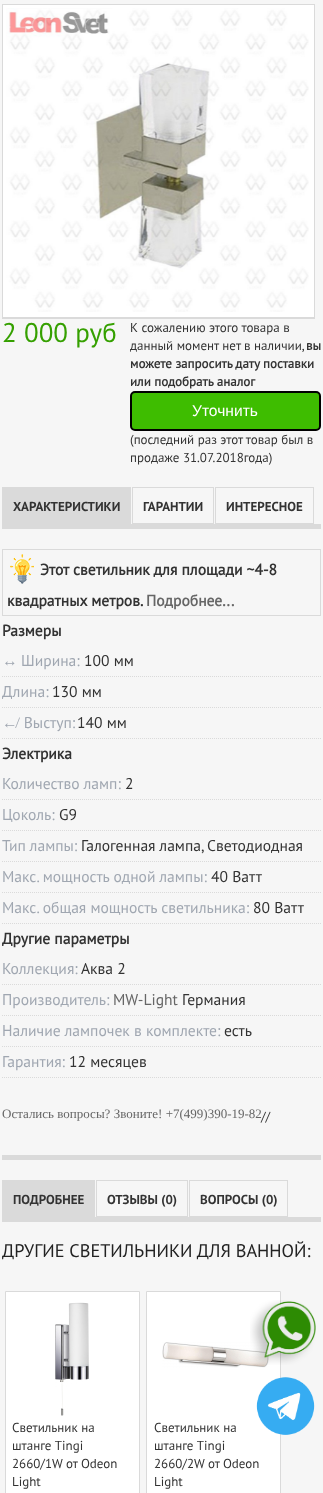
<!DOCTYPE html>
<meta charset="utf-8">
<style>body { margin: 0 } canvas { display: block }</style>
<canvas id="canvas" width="323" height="1493"></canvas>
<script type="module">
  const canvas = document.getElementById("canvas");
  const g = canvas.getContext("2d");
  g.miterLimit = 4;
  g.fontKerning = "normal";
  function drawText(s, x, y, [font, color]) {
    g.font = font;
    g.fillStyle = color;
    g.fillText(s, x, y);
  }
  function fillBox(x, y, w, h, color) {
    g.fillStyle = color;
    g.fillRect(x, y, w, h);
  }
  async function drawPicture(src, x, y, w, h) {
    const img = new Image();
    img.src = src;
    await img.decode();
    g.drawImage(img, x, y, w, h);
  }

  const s1 = ["27px PT Sans", "#35A000"];
  const s2 = ["13px PT Sans", "#333333"];
  const s3 = ["bold 13px PT Sans", "#333333"];
  const s4 = ["15.6px Liberation Sans", "#FFFFFF"];
  const s5 = ["bold 13px 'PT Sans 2'", "#333333"];
  const s6 = ["bold 15.6px PT Sans", "#333333"];
  const s7 = ["bold 15.6px PT Sans", "#666666"];
  const s8 = ["15.6px Liberation Serif", "#A0A7B1"];
  const s9 = ["15.6px PT Sans", "#A0A7B1"];
  const s10 = ["15.6px PT Sans", "#333333"];
  const s11 = ["15.6px PT Sans", "#666666"];
  const s12 = ["13px Liberation Serif", "#666666"];
  const s13 = ["18.25px PT Sans", "#222222"];

  fillBox(0, 0, 323, 1493, "#F6F6F6");
  g.strokeStyle = "#DADADA";
  g.strokeRect(2.5, 4.5, 312, 314);
  fillBox(3, 5, 311, 312, "#FFFFFF");
  fillBox(3, 317, 311, 1, "#DADADA");
  await drawPicture("pic1.png", 6, 8, 303, 304);
  drawText("2 000 руб", 2, 342, s1);
  drawText("К сожалению этого товара в", 130, 332, s2);
  drawText("данный момент нет в наличии,", 130, 350, s2);
  drawText("вы", 306, 350, s3);
  drawText("можете запросить дату поставки", 130, 368, s3);
  drawText("или подобрать аналог", 130, 386, s3);
  g.fillStyle = "#3EBD00";
  g.beginPath();
  g.roundRect(131, 392, 189, 38, 4);
  g.fill();
  g.strokeStyle = "#000000";
  g.lineWidth = 2;
  g.stroke();
  drawText("Уточнить", 192, 416, s4);
  drawText("(последний раз этот товар был в", 130, 444, s2);
  drawText("продаже 31.07.2018года)", 130, 462, s2);
  fillBox(2, 524, 319, 5, "#DADADA");
  fillBox(2, 487, 129, 37, "#DADADA");
  drawText("ХАРАКТЕРИСТИКИ", 13, 511, s5);
  g.strokeStyle = "#DADADA";
  g.lineWidth = 1;
  g.strokeRect(132.5, 487.5, 81, 36);
  drawText("ГАРАНТИИ", 143, 511, s5);
  g.strokeRect(215.5, 487.5, 98, 36);
  drawText("ИНТЕРЕСНОЕ", 226, 511, s5);
  g.strokeRect(2.5, 549.5, 318, 66);
  await drawPicture("pic2.png", 10, 554, 24, 30);
  drawText("Этот светильник для площади ~4-8", 40, 575, s6);
  drawText("квадратных метров.", 7, 606, s6);
  drawText("Подробнее...", 146, 606, s7);
  drawText("Размеры", 2, 636, s6);
  g.beginPath();
  g.moveTo(2, 676.5);
  g.lineTo(321, 676.5);
  g.setLineDash([1, 1]);
  g.stroke();
  drawText("↔", 2, 666, s8);
  drawText("Ширина:", 21, 666, s9);
  drawText("100 мм", 84, 666, s10);
  g.beginPath();
  g.moveTo(2, 707.5);
  g.lineTo(321, 707.5);
  g.stroke();
  g.save();
  g.beginPath();
  g.rect(2, 467, 319, 611);
  g.clip();
  drawText("Длина:", 2, 697, s9);
  g.restore();
  drawText("130 мм", 52, 697, s10);
  g.beginPath();
  g.moveTo(2, 738.5);
  g.lineTo(321, 738.5);
  g.stroke();
  g.wordSpacing = "2px";
  drawText("↚ Выступ:", 2, 728, s9);
  g.wordSpacing = "0px";
  drawText("140 мм", 77, 728, s10);
  drawText("Электрика", 2, 759, s6);
  g.beginPath();
  g.moveTo(2, 799.5);
  g.lineTo(321, 799.5);
  g.stroke();
  drawText("Количество ламп:", 2, 789, s9);
  drawText("2", 125, 789, s10);
  g.beginPath();
  g.moveTo(2, 830.5);
  g.lineTo(321, 830.5);
  g.stroke();
  drawText("Цоколь:", 2, 820, s9);
  drawText("G9", 59, 820, s10);
  g.beginPath();
  g.moveTo(2, 861.5);
  g.lineTo(321, 861.5);
  g.stroke();
  drawText("Тип лампы:", 2, 851, s9);
  drawText("Галогенная лампа, Светодиодная", 81, 851, s10);
  g.beginPath();
  g.moveTo(2, 892.5);
  g.lineTo(321, 892.5);
  g.stroke();
  drawText("Макс. мощность одной лампы:", 2, 882, s9);
  drawText("40 Ватт", 211, 882, s10);
  g.beginPath();
  g.moveTo(2, 923.5);
  g.lineTo(321, 923.5);
  g.stroke();
  drawText("Макс. общая мощность светильника:", 2, 913, s9);
  drawText("80 Ватт", 253, 913, s10);
  g.save();
  g.beginPath();
  g.rect(2, 929, 319, 20);
  g.clip();
  drawText("Другие параметры", 2, 944, s6);
  g.restore();
  g.beginPath();
  g.moveTo(2, 984.5);
  g.lineTo(321, 984.5);
  g.stroke();
  drawText("Коллекция:", 2, 974, s9);
  drawText("Аква 2", 81, 974, s10);
  g.beginPath();
  g.moveTo(2, 1015.5);
  g.lineTo(321, 1015.5);
  g.stroke();
  drawText("Производитель:", 2, 1005, s9);
  drawText("MW-Light", 113, 1005, s11);
  drawText("Германия", 182, 1005, s10);
  g.beginPath();
  g.moveTo(2, 1046.5);
  g.lineTo(321, 1046.5);
  g.stroke();
  drawText("Наличие лампочек в комплекте:", 2, 1036, s9);
  drawText("есть", 224, 1036, s10);
  g.beginPath();
  g.moveTo(2, 1077.5);
  g.lineTo(321, 1077.5);
  g.stroke();
  drawText("Гарантия:", 2, 1067, s9);
  drawText("12 месяцев", 69, 1067, s10);
  drawText("Остались вопросы? Звоните! +7(499)390-19-82", 2, 1118, s12);
  drawText("//", 261, 1121, s2);
  fillBox(2, 1155, 319, 5, "#DADADA");
  fillBox(2, 1217, 319, 5, "#DADADA");
  fillBox(2, 1180, 93, 37, "#DADADA");
  drawText("ПОДРОБНЕЕ", 13, 1204, s5);
  g.setLineDash([]);
  g.strokeRect(96.5, 1180.5, 91, 36);
  drawText("ОТЗЫВЫ (0)", 107, 1204, s5);
  g.strokeRect(189.5, 1180.5, 98, 36);
  drawText("ВОПРОСЫ (0)", 200, 1204, s5);
  drawText("ДРУГИЕ СВЕТИЛЬНИКИ ДЛЯ ВАННОЙ:", 2, 1257, s13);
  g.fillStyle = "#FFFFFF";
  g.beginPath();
  g.rect(5.5, 1291.5, 134, 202);
  g.fill();
  g.stroke();
  await drawPicture("pic3.png", 55, 1302, 34, 114);
  drawText("Светильник на", 12, 1432, s2);
  drawText("штанге Tingi", 12, 1450, s2);
  drawText("2660/1W от Odeon", 12, 1468, s2);
  drawText("Light", 12, 1486, s2);
  g.fillStyle = "#FFFFFF";
  g.beginPath();
  g.rect(146.5, 1291.5, 134, 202);
  g.fill();
  g.stroke();
  await drawPicture("pic4.png", 162, 1342, 107, 26);
  drawText("Светильник на", 154, 1432, s2);
  drawText("штанге Tingi", 154, 1450, s2);
  drawText("2660/2W от Odeon", 154, 1468, s2);
  drawText("Light", 154, 1486, s2);
  await drawPicture("pic5.png", 250, 1300, 66, 65);
  await drawPicture("pic6.png", 256, 1377, 59, 58);
</script>
